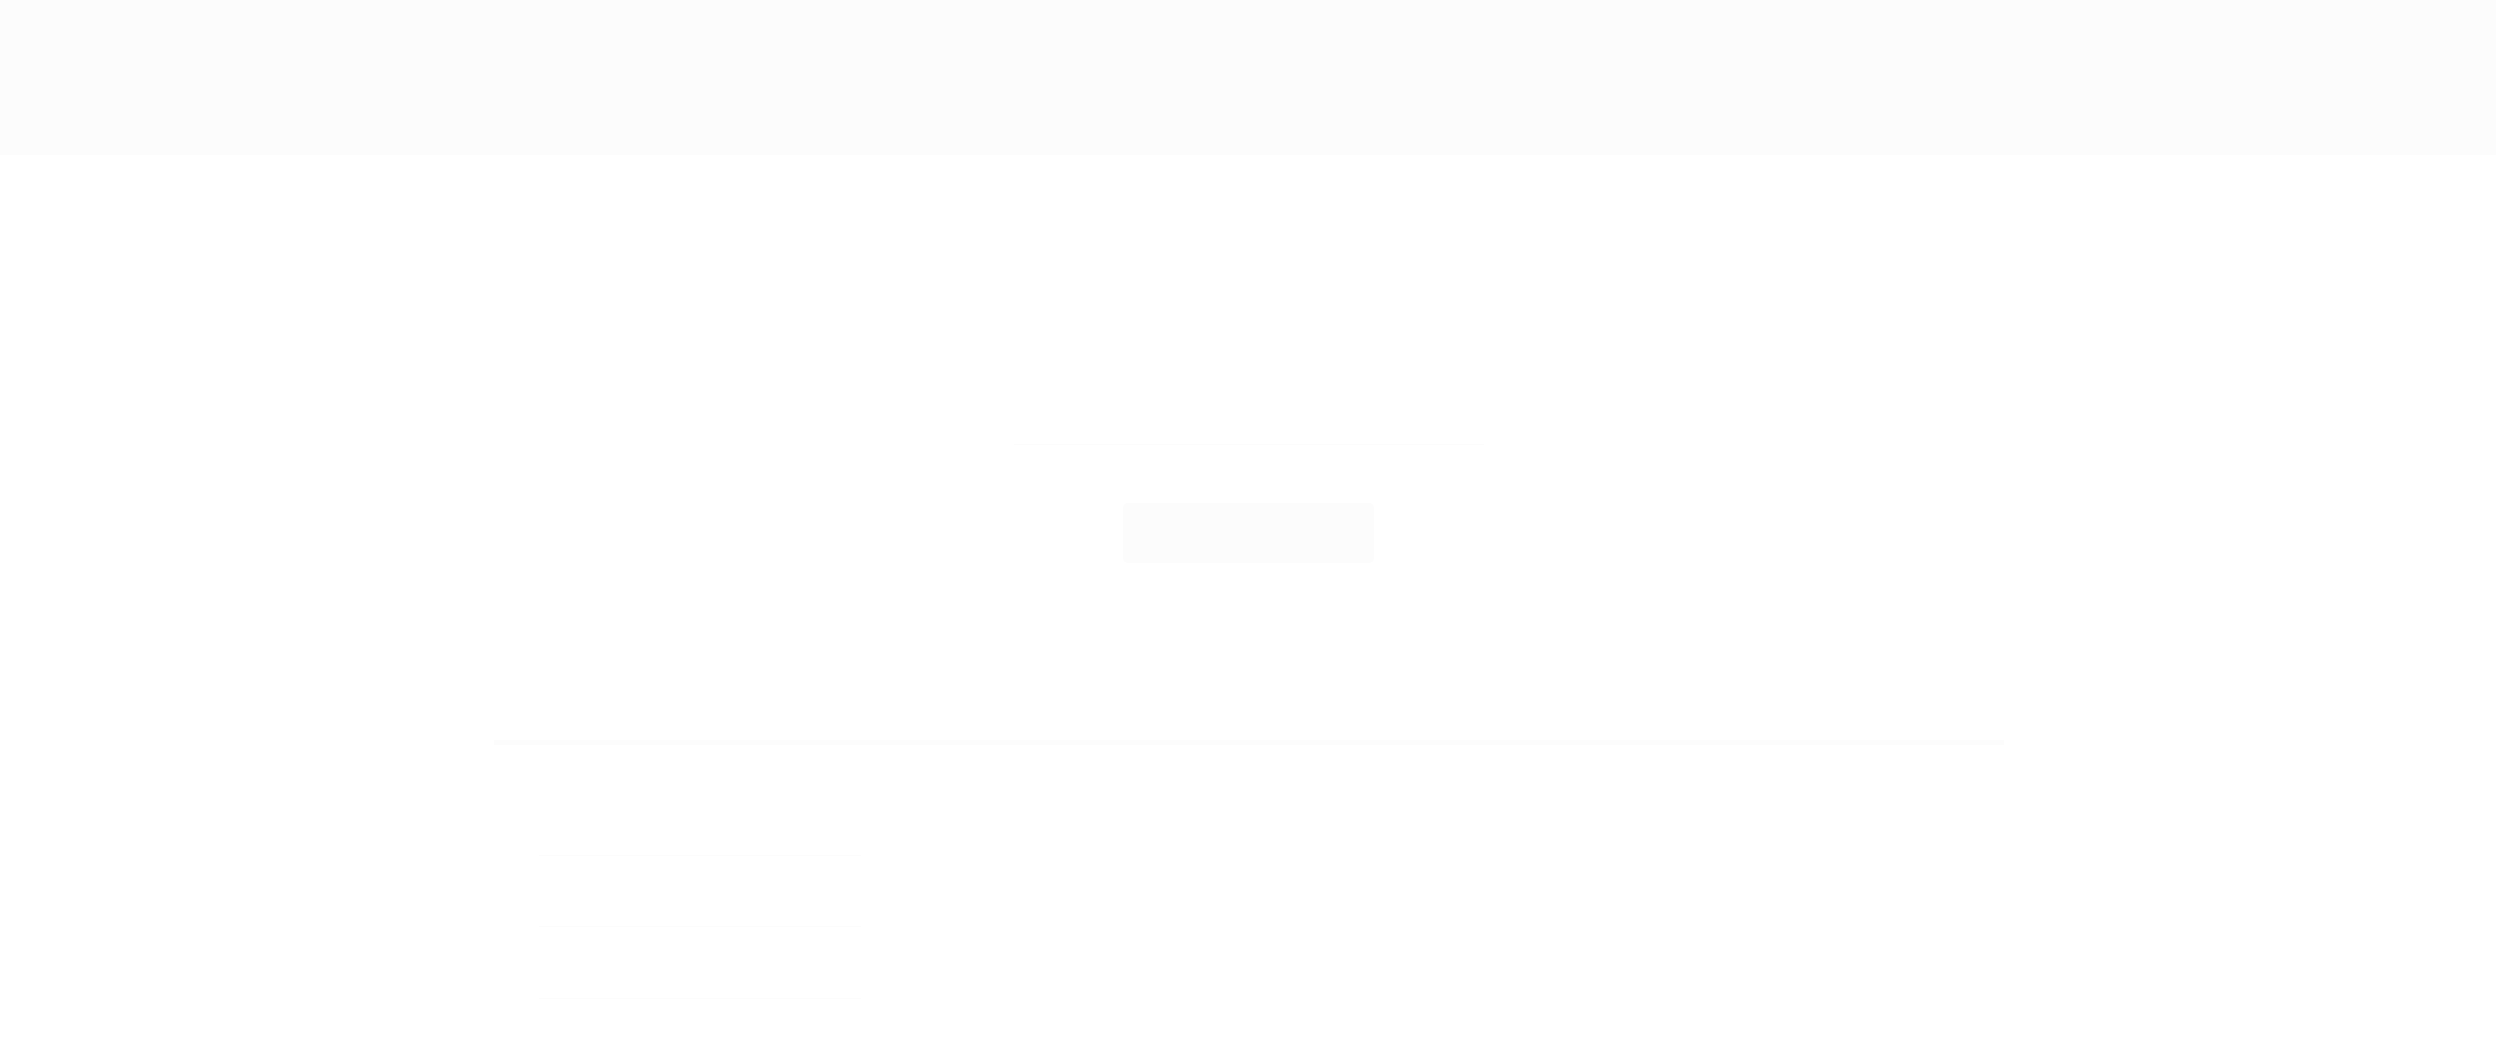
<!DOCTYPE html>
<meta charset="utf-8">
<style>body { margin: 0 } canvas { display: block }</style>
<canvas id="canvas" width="2496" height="1058"></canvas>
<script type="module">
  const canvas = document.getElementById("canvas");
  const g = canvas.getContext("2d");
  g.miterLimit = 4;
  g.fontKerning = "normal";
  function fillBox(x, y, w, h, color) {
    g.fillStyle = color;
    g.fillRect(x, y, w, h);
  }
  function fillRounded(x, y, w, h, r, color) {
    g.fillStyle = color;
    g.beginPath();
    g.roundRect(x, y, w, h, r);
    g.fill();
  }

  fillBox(0, 0, 2496, 1058, "#FFFFFF");
  fillBox(0, 0, 2496, 155, "#FCFCFC");
  fillBox(1014, 444, 470, 1, "#FCFCFC");
  fillRounded(1123, 503, 251, 60, 5, "#FCFCFC");
  fillBox(494, 740, 1510, 5, "#FCFCFC");
  fillBox(539, 855, 322, 1, "#FCFCFC");
  fillBox(539, 926, 322, 1, "#FCFCFC");
  fillBox(539, 998, 322, 1, "#FCFCFC");
</script>
